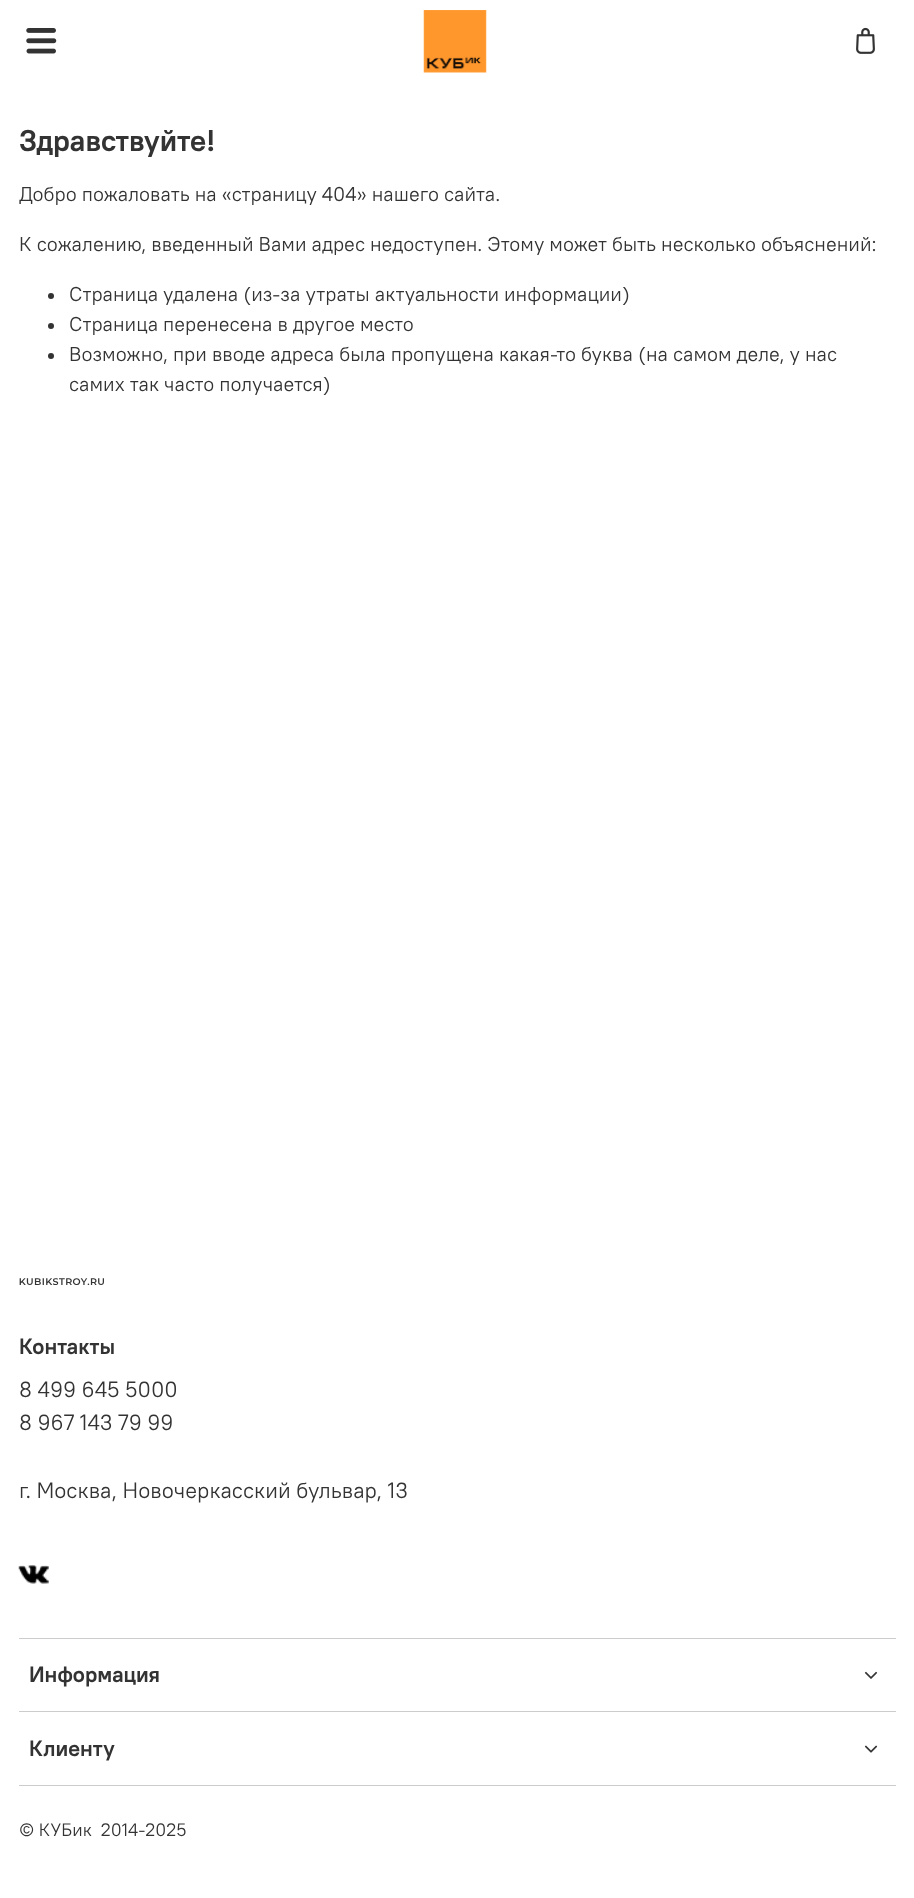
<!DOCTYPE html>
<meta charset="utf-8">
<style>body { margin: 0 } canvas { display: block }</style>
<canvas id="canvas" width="914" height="1898"></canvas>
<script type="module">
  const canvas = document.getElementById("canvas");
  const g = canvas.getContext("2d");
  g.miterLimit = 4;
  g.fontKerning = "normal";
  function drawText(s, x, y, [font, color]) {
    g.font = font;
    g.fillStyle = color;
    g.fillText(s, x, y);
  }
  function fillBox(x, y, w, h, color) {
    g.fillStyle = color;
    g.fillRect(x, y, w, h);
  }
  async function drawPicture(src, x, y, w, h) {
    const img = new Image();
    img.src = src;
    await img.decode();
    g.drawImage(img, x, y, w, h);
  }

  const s1 = ["bold 30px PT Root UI", "#333333"];
  const s2 = ["20px PT Root UI", "#333333"];
  const s3 = ["bold 22px PT Root UI", "#333333"];
  const s4 = ["22px PT Root UI", "#333333"];
  const s5 = ["18px PT Root UI", "#333333"];

  fillBox(0, 0, 914, 1898, "#FFFFFF");
  await drawPicture("pic1.png", 26, 28, 31, 26);
  await drawPicture("pic2.png", 423, 10, 64, 63);
  await drawPicture("pic3.png", 856, 27, 19, 27);
  drawText("Здравствуйте!", 19, 151, s1);
  drawText("Добро пожаловать на «страницу 404» нашего сайта.", 19, 201, s2);
  drawText("К сожалению, введенный Вами адрес недоступен. Этому может быть несколько объяснений:", 19, 251, s2);
  g.beginPath();
  g.arc(51, 296, 3, 0, Math.PI * 2);
  g.fill();
  drawText("Страница удалена (из-за утраты актуальности информации)", 69, 301, s2);
  g.beginPath();
  g.arc(51, 326, 3, 0, Math.PI * 2);
  g.fill();
  drawText("Страница перенесена в другое место", 69, 331, s2);
  g.beginPath();
  g.arc(51, 356, 3, 0, Math.PI * 2);
  g.fill();
  drawText("Возможно, при вводе адреса была пропущена какая-то буква (на самом деле, у нас", 69, 361, s2);
  drawText("самих так часто получается)", 69, 391, s2);
  await drawPicture("pic4.png", 19, 1278, 85, 7);
  drawText("Контакты", 19, 1354, s3);
  drawText("8 499 645 5000", 19, 1397, s4);
  drawText("8 967 143 79 99", 19, 1430, s4);
  drawText("г. Москва, Новочеркасский бульвар, 13", 19, 1498, s4);
  await drawPicture("pic5.png", 18, 1565, 31, 19);
  fillBox(19, 1638, 877, 1, "#CCCCCC");
  drawText("Информация", 29, 1682, s3);
  await drawPicture("pic6.png", 864, 1671, 14, 8);
  fillBox(19, 1711, 877, 1, "#CCCCCC");
  fillBox(19, 1785, 877, 1, "#CCCCCC");
  drawText("Клиенту", 29, 1756, s3);
  await drawPicture("pic7.png", 864, 1745, 14, 8);
  drawText("© КУБик  2014-2025", 19, 1836, s5);
</script>
